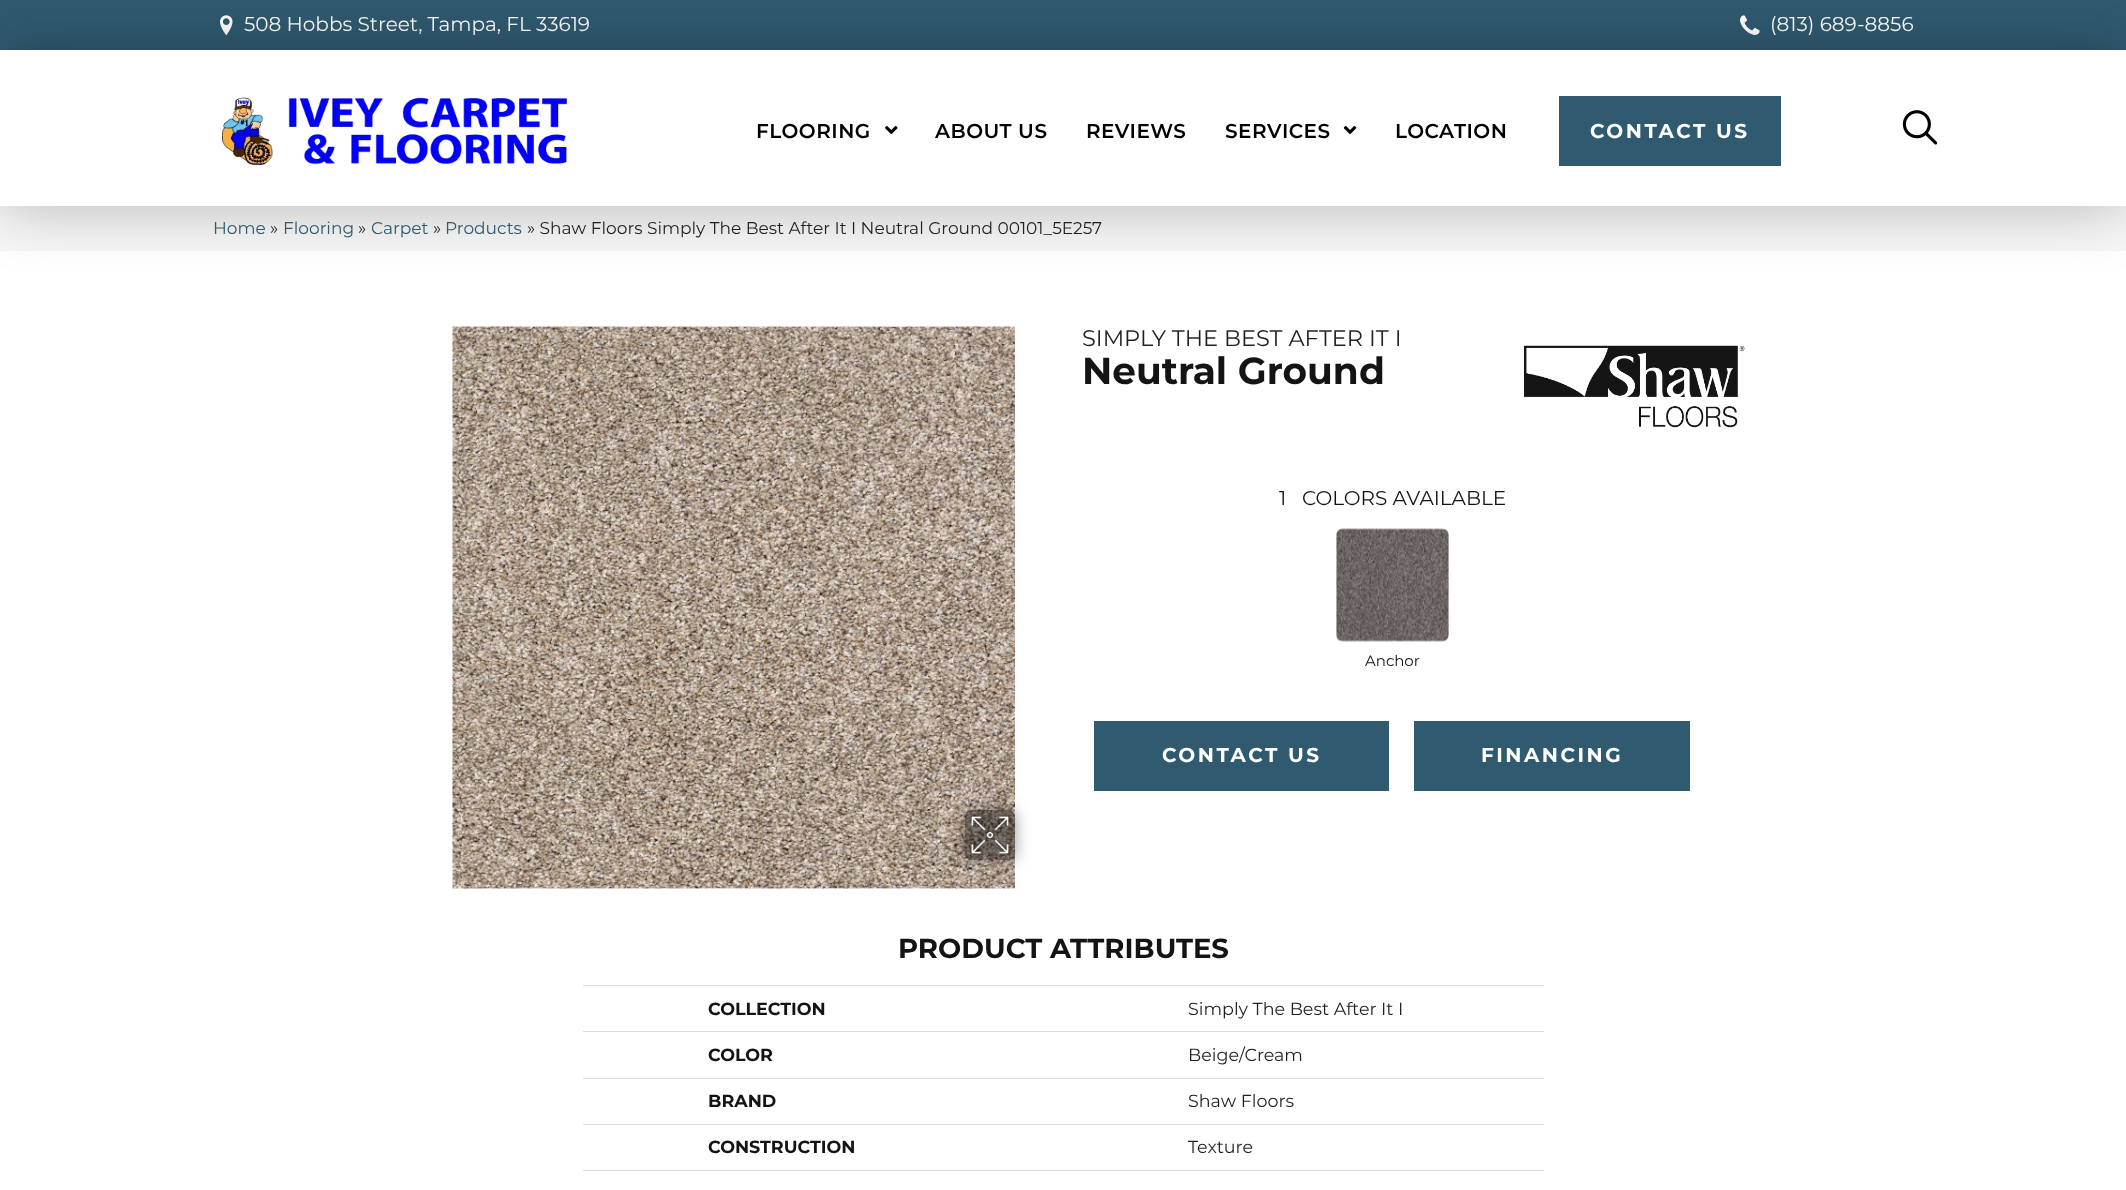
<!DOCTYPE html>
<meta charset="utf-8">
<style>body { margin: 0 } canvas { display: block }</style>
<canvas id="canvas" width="2126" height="1190"></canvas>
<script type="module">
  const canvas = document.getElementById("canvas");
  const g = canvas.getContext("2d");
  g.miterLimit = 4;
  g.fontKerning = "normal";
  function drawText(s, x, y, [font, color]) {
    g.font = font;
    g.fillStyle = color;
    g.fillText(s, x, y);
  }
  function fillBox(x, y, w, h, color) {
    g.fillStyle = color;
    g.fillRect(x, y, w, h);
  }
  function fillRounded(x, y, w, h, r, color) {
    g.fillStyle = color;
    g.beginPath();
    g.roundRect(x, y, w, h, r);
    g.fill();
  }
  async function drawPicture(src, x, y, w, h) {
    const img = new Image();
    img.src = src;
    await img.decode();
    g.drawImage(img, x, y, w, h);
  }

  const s1 = ["20px Montserrat", "#FFFFFF"];
  const s2 = ["600 20px Montserrat", "#000000"];
  const s3 = ["bold 20px Montserrat", "#FFFFFF"];
  const s4 = ["17px Montserrat", "#305A70"];
  const s5 = ["17px Montserrat", "#231F20"];
  const s6 = ["22.5px Montserrat", "#231F20"];
  const s7 = ["bold 37.5px Montserrat", "#141414"];
  const s8 = ["20px Montserrat", "#141414"];
  const s9 = ["15px Montserrat", "#141414"];
  const s10 = ["bold 27.5px Montserrat", "#141414"];
  const s11 = ["bold 17.5px Montserrat", "#141414"];
  const s12 = ["17.5px Montserrat", "#231F20"];

  fillBox(0, 0, 2126, 1190, "#FFFFFF");
  fillBox(0, 0, 2126, 50, "#305A70");
  await drawPicture("pic1.png", 220, 15, 13, 21);
  drawText("508 Hobbs Street, Tampa, FL 33619", 244, 31, s1);
  await drawPicture("pic2.png", 1740, 15, 20, 20);
  drawText("(813) 689-8856", 1770, 31, s1);
  fillBox(0, 206, 2126, 45, "#F7F7F7");
  g.save();
  g.beginPath();
  g.moveTo(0, 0);
  g.lineTo(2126, 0);
  g.lineTo(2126, 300);
  g.lineTo(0, 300);
  g.closePath();
  g.moveTo(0, 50);
  g.lineTo(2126, 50);
  g.lineTo(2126, 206);
  g.lineTo(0, 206);
  g.closePath();
  g.clip("evenodd");
  g.fillStyle = "rgba(0, 0, 0, 0.27)";
  g.filter = "blur(31px)";
  g.beginPath();
  g.rect(0, 50, 2126, 156);
  g.fill();
  g.filter = "none";
  g.restore();
  await drawPicture("pic3.png", 222, 97, 345, 68);
  g.letterSpacing = "0.5px";
  drawText("FLOORING", 756, 138, s2);
  await drawPicture("pic4.png", 885, 126, 13, 8);
  drawText("ABOUT US", 935, 138, s2);
  drawText("REVIEWS", 1086, 138, s2);
  drawText("SERVICES", 1225, 138, s2);
  await drawPicture("pic5.png", 1343, 126, 14, 8);
  drawText("LOCATION", 1395, 138, s2);
  fillBox(1559, 96, 222, 70, "#305A70");
  g.letterSpacing = "2.5px";
  drawText("CONTACT US", 1590, 138, s3);
  await drawPicture("pic6.png", 1902, 110, 36, 35);
  g.letterSpacing = "0px";
  drawText("Home", 213, 234, s4);
  drawText("»", 270, 234, s5);
  drawText("Flooring", 283, 234, s4);
  drawText("»", 358, 234, s5);
  drawText("Carpet", 371, 234, s4);
  drawText("»", 433, 234, s5);
  drawText("Products", 445, 234, s4);
  drawText("» Shaw Floors Simply The Best After It I Neutral Ground 00101_5E257", 527, 234, s5);
  await drawPicture("pic7.png", 452, 326, 563, 563);
  g.save();
  g.beginPath();
  g.moveTo(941, 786);
  g.lineTo(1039, 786);
  g.lineTo(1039, 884);
  g.lineTo(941, 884);
  g.closePath();
  g.moveTo(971, 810);
  g.lineTo(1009, 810);
  g.bezierCurveTo(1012.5, 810, 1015, 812.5, 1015, 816);
  g.lineTo(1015, 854);
  g.bezierCurveTo(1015, 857.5, 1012.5, 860, 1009, 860);
  g.lineTo(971, 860);
  g.bezierCurveTo(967.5, 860, 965, 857.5, 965, 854);
  g.lineTo(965, 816);
  g.bezierCurveTo(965, 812.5, 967.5, 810, 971, 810);
  g.closePath();
  g.clip("evenodd");
  g.fillStyle = "rgba(0, 0, 0, 0.41)";
  g.filter = "blur(7.5px)";
  g.beginPath();
  g.roundRect(965, 810, 50, 50, 6);
  g.fill();
  g.filter = "none";
  g.restore();
  fillRounded(965, 810, 50, 50, 6, "rgba(0, 0, 0, 0.4)");
  await drawPicture("pic8.png", 967, 812, 46, 46);
  drawText("SIMPLY THE BEST AFTER IT I", 1082, 346, s6);
  drawText("Neutral Ground", 1082, 384, s7);
  await drawPicture("pic9.png", 1524, 345, 221, 83);
  drawText("1", 1279, 505, s8);
  drawText("COLORS AVAILABLE", 1302, 505, s8);
  await drawPicture("pic10.png", 1336, 528, 113, 114);
  drawText("Anchor", 1365, 666, s9);
  fillBox(1094, 721, 295, 70, "#305A70");
  g.letterSpacing = "2.5px";
  drawText("CONTACT US", 1162, 762, s3);
  fillBox(1414, 721, 276, 70, "#305A70");
  drawText("FINANCING", 1481, 762, s3);
  g.letterSpacing = "0px";
  drawText("PRODUCT ATTRIBUTES", 898, 958, s10);
  drawText("COLLECTION", 708, 1015, s11);
  fillBox(583, 985, 961, 1, "#DDDDDD");
  drawText("Simply The Best After It I", 1188, 1015, s12);
  drawText("COLOR", 708, 1061, s11);
  fillBox(583, 1031, 961, 1, "#DDDDDD");
  drawText("Beige/Cream", 1188, 1061, s12);
  drawText("BRAND", 708, 1107, s11);
  fillBox(583, 1078, 961, 1, "#DDDDDD");
  drawText("Shaw Floors", 1188, 1107, s12);
  drawText("CONSTRUCTION", 708, 1153, s11);
  fillBox(583, 1124, 961, 1, "#DDDDDD");
  drawText("Texture", 1188, 1153, s12);
  fillBox(583, 1170, 961, 1, "#DDDDDD");
</script>
